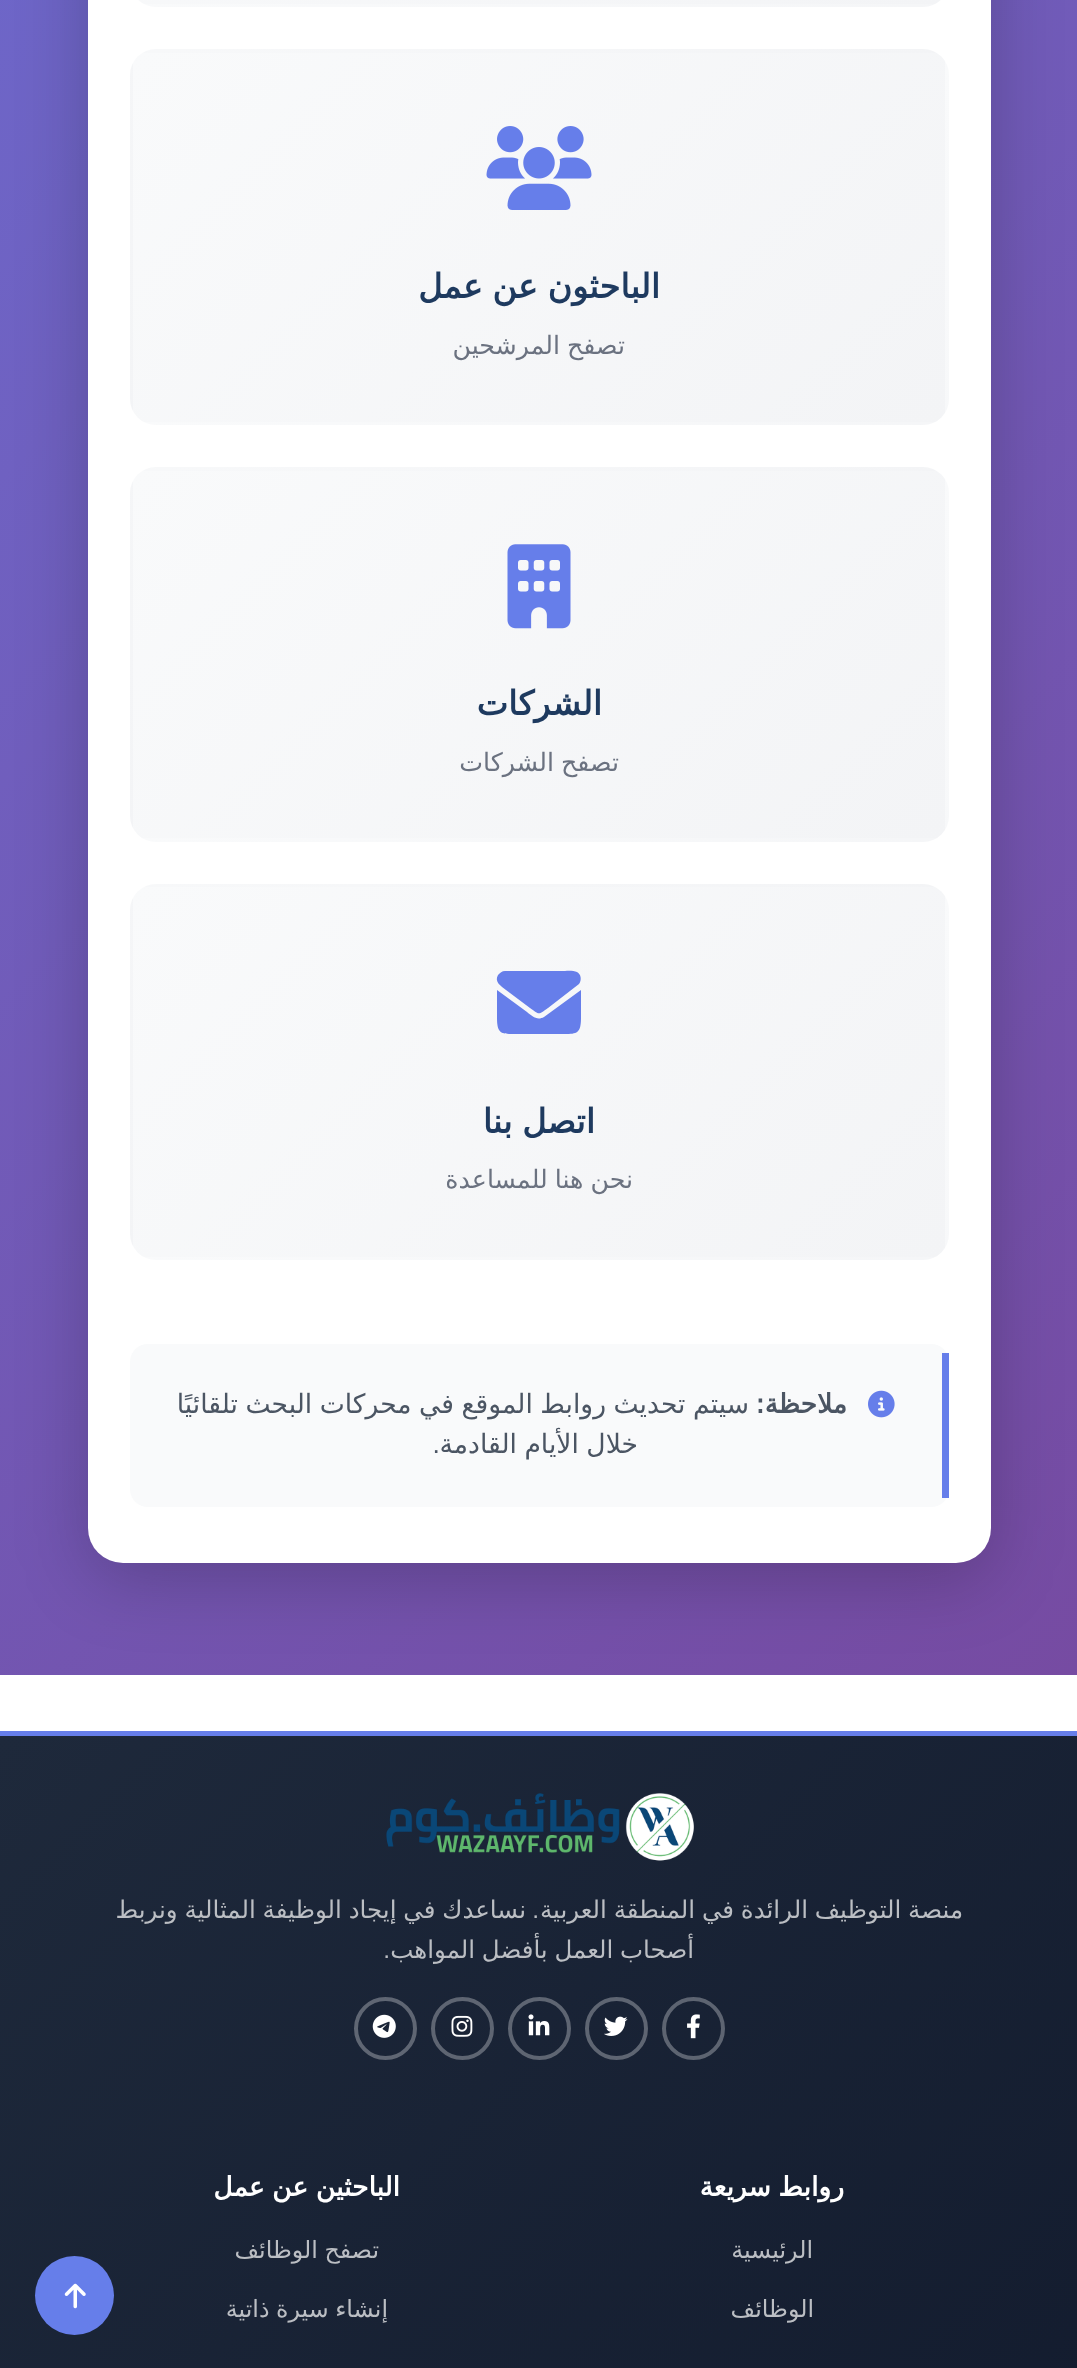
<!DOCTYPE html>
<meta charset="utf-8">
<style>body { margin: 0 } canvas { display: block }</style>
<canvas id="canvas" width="1077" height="2368"></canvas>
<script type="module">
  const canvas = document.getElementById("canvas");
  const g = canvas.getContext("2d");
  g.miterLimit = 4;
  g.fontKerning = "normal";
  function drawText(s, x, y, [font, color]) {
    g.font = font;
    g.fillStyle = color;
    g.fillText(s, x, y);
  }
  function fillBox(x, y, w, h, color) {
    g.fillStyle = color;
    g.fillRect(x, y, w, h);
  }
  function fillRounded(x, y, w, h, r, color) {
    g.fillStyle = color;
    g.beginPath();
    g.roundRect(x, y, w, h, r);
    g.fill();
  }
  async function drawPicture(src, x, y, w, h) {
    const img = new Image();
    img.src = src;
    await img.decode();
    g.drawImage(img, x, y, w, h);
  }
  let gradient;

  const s1 = ["bold 33.5px DejaVu Sans", "#1E3A5F"];
  const s2 = ["25.25px DejaVu Sans", "#6B7280"];
  const s3 = ["bold 26.6px DejaVu Sans", "#4B5563"];
  const s4 = ["26.6px DejaVu Sans", "#4B5563"];
  const s5 = ["26.6px Liberation Sans", "#4B5563"];
  const s6 = ["24.5px DejaVu Sans", "#BBBEC3"];
  const s7 = ["24.5px Liberation Sans", "#BBBEC3"];
  const s8 = ["bold 26.6px DejaVu Sans", "#FFFFFF"];
  const s9 = ["23.75px DejaVu Sans", "#BBBEC3"];

  fillBox(0, 0, 1077, 2368, "#FFFFFF");
  gradient = g.createLinearGradient(-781, -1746, 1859, 894);
  gradient.addColorStop(0, "#667EEA");
  gradient.addColorStop(1, "#764BA2");
  g.fillStyle = gradient;
  g.fillRect(0, 0, 1077, 1675);
  g.fillStyle = "rgba(0, 0, 0, 0.2)";
  g.filter = "blur(35px)";
  g.beginPath();
  g.roundRect(88, -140, 903, 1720, 35);
  g.fill();
  g.filter = "none";
  fillRounded(88, -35, 903, 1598, 35, "#FFFFFF");
  g.save();
  g.beginPath();
  g.roundRect(130, -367, 819, 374, 26);
  g.clip();
  gradient = g.createLinearGradient(244, -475, 834, 115);
  gradient.addColorStop(0, "#F9FAFB");
  gradient.addColorStop(1, "#F3F4F6");
  g.fillStyle = gradient;
  g.fillRect(133, 0, 812, 4);
  gradient = g.createLinearGradient(244, -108, 834, 482);
  gradient.addColorStop(0, "#F9FAFB");
  gradient.addColorStop(1, "#F3F4F6");
  g.fillStyle = gradient;
  g.fillRect(144, 4, 791, 3);
  g.restore();
  g.save();
  g.beginPath();
  g.roundRect(130, 49, 819, 376, 26);
  g.clip();
  gradient = g.createLinearGradient(244, -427, 834, 163);
  gradient.addColorStop(0, "#F9FAFB");
  gradient.addColorStop(1, "#F3F4F6");
  g.fillStyle = gradient;
  g.fillRect(142, 49, 803, 4);
  gradient = g.createLinearGradient(-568, -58, 22, 532);
  gradient.addColorStop(0, "#F9FAFB");
  gradient.addColorStop(1, "#F3F4F6");
  g.fillStyle = gradient;
  g.fillRect(130, 63, 3, 348);
  gradient = g.createLinearGradient(244, -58, 834, 532);
  gradient.addColorStop(0, "#F9FAFB");
  gradient.addColorStop(1, "#F3F4F6");
  g.fillStyle = gradient;
  g.fillRect(133, 53, 812, 369);
  gradient = g.createLinearGradient(1056, -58, 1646, 532);
  gradient.addColorStop(0, "#F9FAFB");
  gradient.addColorStop(1, "#F3F4F6");
  g.fillStyle = gradient;
  g.fillRect(945, 53, 4, 360);
  gradient = g.createLinearGradient(244, 311, 834, 902);
  gradient.addColorStop(0, "#F9FAFB");
  gradient.addColorStop(1, "#F3F4F6");
  g.fillStyle = gradient;
  g.fillRect(144, 422, 791, 3);
  g.restore();
  await drawPicture("pic1.png", 486, 126, 106, 84);
  g.wordSpacing = "-1px";
  g.direction = "rtl";
  drawText("الباحثون عن عمل", 660, 298, s1);
  drawText("تصفح المرشحين", 625, 354, s2);
  g.save();
  g.beginPath();
  g.roundRect(130, 467, 819, 375, 26);
  g.clip();
  gradient = g.createLinearGradient(244, -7.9, 834, 582);
  gradient.addColorStop(0, "#F9FAFB");
  gradient.addColorStop(1, "#F3F4F6");
  g.fillStyle = gradient;
  g.fillRect(142, 467, 803, 4);
  gradient = g.createLinearGradient(-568, 360, 22, 949);
  gradient.addColorStop(0, "#F9FAFB");
  gradient.addColorStop(1, "#F3F4F6");
  g.fillStyle = gradient;
  g.fillRect(130, 481, 3, 347);
  gradient = g.createLinearGradient(244, 360, 834, 949);
  gradient.addColorStop(0, "#F9FAFB");
  gradient.addColorStop(1, "#F3F4F6");
  g.fillStyle = gradient;
  g.fillRect(133, 471, 812, 367);
  gradient = g.createLinearGradient(1056, 360, 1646, 949);
  gradient.addColorStop(0, "#F9FAFB");
  gradient.addColorStop(1, "#F3F4F6");
  g.fillStyle = gradient;
  g.fillRect(945, 471, 4, 367);
  gradient = g.createLinearGradient(244, 727, 834, 1317);
  gradient.addColorStop(0, "#F9FAFB");
  gradient.addColorStop(1, "#F3F4F6");
  g.fillStyle = gradient;
  g.fillRect(142, 838, 803, 4);
  g.restore();
  await drawPicture("pic2.png", 507, 544, 64, 85);
  g.wordSpacing = "0px";
  drawText("الشركات", 602, 715, s1);
  g.wordSpacing = "-1px";
  drawText("تصفح الشركات", 619, 771, s2);
  g.save();
  g.beginPath();
  g.roundRect(130, 884, 819, 376, 26);
  g.clip();
  gradient = g.createLinearGradient(244, 407, 834, 998);
  gradient.addColorStop(0, "#F9FAFB");
  gradient.addColorStop(1, "#F3F4F6");
  g.fillStyle = gradient;
  g.fillRect(144, 884, 791, 3);
  gradient = g.createLinearGradient(-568, 777, 22, 1367);
  gradient.addColorStop(0, "#F9FAFB");
  gradient.addColorStop(1, "#F3F4F6");
  g.fillStyle = gradient;
  g.fillRect(130, 898, 3, 348);
  gradient = g.createLinearGradient(244, 777, 834, 1367);
  gradient.addColorStop(0, "#F9FAFB");
  gradient.addColorStop(1, "#F3F4F6");
  g.fillStyle = gradient;
  g.fillRect(133, 887, 812, 370);
  gradient = g.createLinearGradient(1056, 777, 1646, 1367);
  gradient.addColorStop(0, "#F9FAFB");
  gradient.addColorStop(1, "#F3F4F6");
  g.fillStyle = gradient;
  g.fillRect(945, 896, 4, 352);
  gradient = g.createLinearGradient(244, 1146, 834, 1736);
  gradient.addColorStop(0, "#F9FAFB");
  gradient.addColorStop(1, "#F3F4F6");
  g.fillStyle = gradient;
  g.fillRect(144, 1257, 791, 3);
  g.restore();
  g.fillStyle = "#667EEA";
  g.beginPath();
  g.moveTo(505, 971);
  g.bezierCurveTo(502, 971, 500, 973, 498, 975);
  g.bezierCurveTo(494, 982, 501, 986, 506, 990);
  g.lineTo(530, 1008);
  g.bezierCurveTo(540, 1015, 538, 1015, 548, 1008);
  g.lineTo(579, 984);
  g.bezierCurveTo(582, 980, 581, 974, 577, 972);
  g.bezierCurveTo(573, 970, 565, 971, 562, 971);
  g.closePath();
  g.moveTo(497, 990);
  g.lineTo(497, 1018);
  g.bezierCurveTo(497, 1035, 502, 1034, 518, 1034);
  g.lineTo(560, 1034);
  g.bezierCurveTo(576, 1034, 581, 1035, 581, 1018);
  g.lineTo(581, 990);
  g.lineTo(544, 1017);
  g.bezierCurveTo(537, 1021, 532, 1016, 527, 1012);
  g.closePath();
  g.fill();
  drawText("اتصل بنا", 595, 1133, s1);
  drawText("نحن هنا للمساعدة", 633, 1188, s2);
  fillRounded(130, 1344, 819, 163, 18, "#F9FAFB");
  fillBox(942, 1353, 7, 145, "#667EEA");
  await drawPicture("pic3.png", 868, 1390, 27, 28);
  g.wordSpacing = "0px";
  drawText("ملاحظة:", 847, 1413, s3);
  g.wordSpacing = "-1px";
  drawText("سيتم تحديث روابط الموقع في محركات البحث تلقائيًا", 749, 1413, s4);
  drawText("خلال الأيام القادمة", 638, 1453, s4);
  g.wordSpacing = "0px";
  drawText(".", 440, 1453, s5);
  gradient = g.createLinearGradient(-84, 1820, 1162, 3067);
  gradient.addColorStop(0, "#1E293B");
  gradient.addColorStop(1, "#0F172A");
  g.fillStyle = gradient;
  g.fillRect(0, 1736, 1077, 632);
  fillBox(0, 1731, 1077, 5, "#667EEA");
  await drawPicture("pic4.png", 386, 1793, 308, 68);
  g.wordSpacing = "-1px";
  drawText("منصة التوظيف الرائدة في المنطقة العربية", 963, 1918, s6);
  g.wordSpacing = "0px";
  drawText(".", 539, 1918, s7);
  g.wordSpacing = "-1px";
  drawText("نساعدك في إيجاد الوظيفة المثالية ونربط", 526, 1918, s6);
  drawText("أصحاب العمل بأفضل المواهب", 694, 1958, s6);
  g.wordSpacing = "0px";
  drawText(".", 390, 1958, s7);
  g.beginPath();
  g.arc(693.5, 2028.5, 29.5, 0, Math.PI * 2);
  g.strokeStyle = "#5D6471";
  g.lineWidth = 4;
  g.stroke();
  await drawPicture("pic5.png", 687, 2014, 13, 25);
  g.beginPath();
  g.arc(616.5, 2028.5, 29.5, 0, Math.PI * 2);
  g.strokeStyle = "#5E6572";
  g.stroke();
  await drawPicture("pic6.png", 604, 2016, 24, 20);
  g.beginPath();
  g.arc(539.5, 2028.5, 29.5, 0, Math.PI * 2);
  g.stroke();
  await drawPicture("pic7.png", 528, 2014, 22, 22);
  g.beginPath();
  g.arc(462.5, 2028.5, 29.5, 0, Math.PI * 2);
  g.stroke();
  await drawPicture("pic8.png", 451, 2015, 22, 22);
  g.beginPath();
  g.arc(385.5, 2028.5, 29.5, 0, Math.PI * 2);
  g.strokeStyle = "#5F6673";
  g.stroke();
  await drawPicture("pic9.png", 372, 2014, 24, 24);
  g.wordSpacing = "-1px";
  drawText("روابط سريعة", 844, 2196, s8);
  g.wordSpacing = "0px";
  drawText("الرئيسية", 813, 2258, s9);
  drawText("الوظائف", 814, 2317, s9);
  g.wordSpacing = "-1px";
  drawText("الباحثين عن عمل", 400, 2196, s8);
  drawText("تصفح الوظائف", 379, 2258, s9);
  drawText("إنشاء سيرة ذاتية", 388, 2317, s9);
  g.fillStyle = "#667EEA";
  g.beginPath();
  g.arc(74.5, 2295.5, 39.5, 0, Math.PI * 2);
  g.fill();
  await drawPicture("pic10.png", 64, 2283, 22, 26);
</script>
